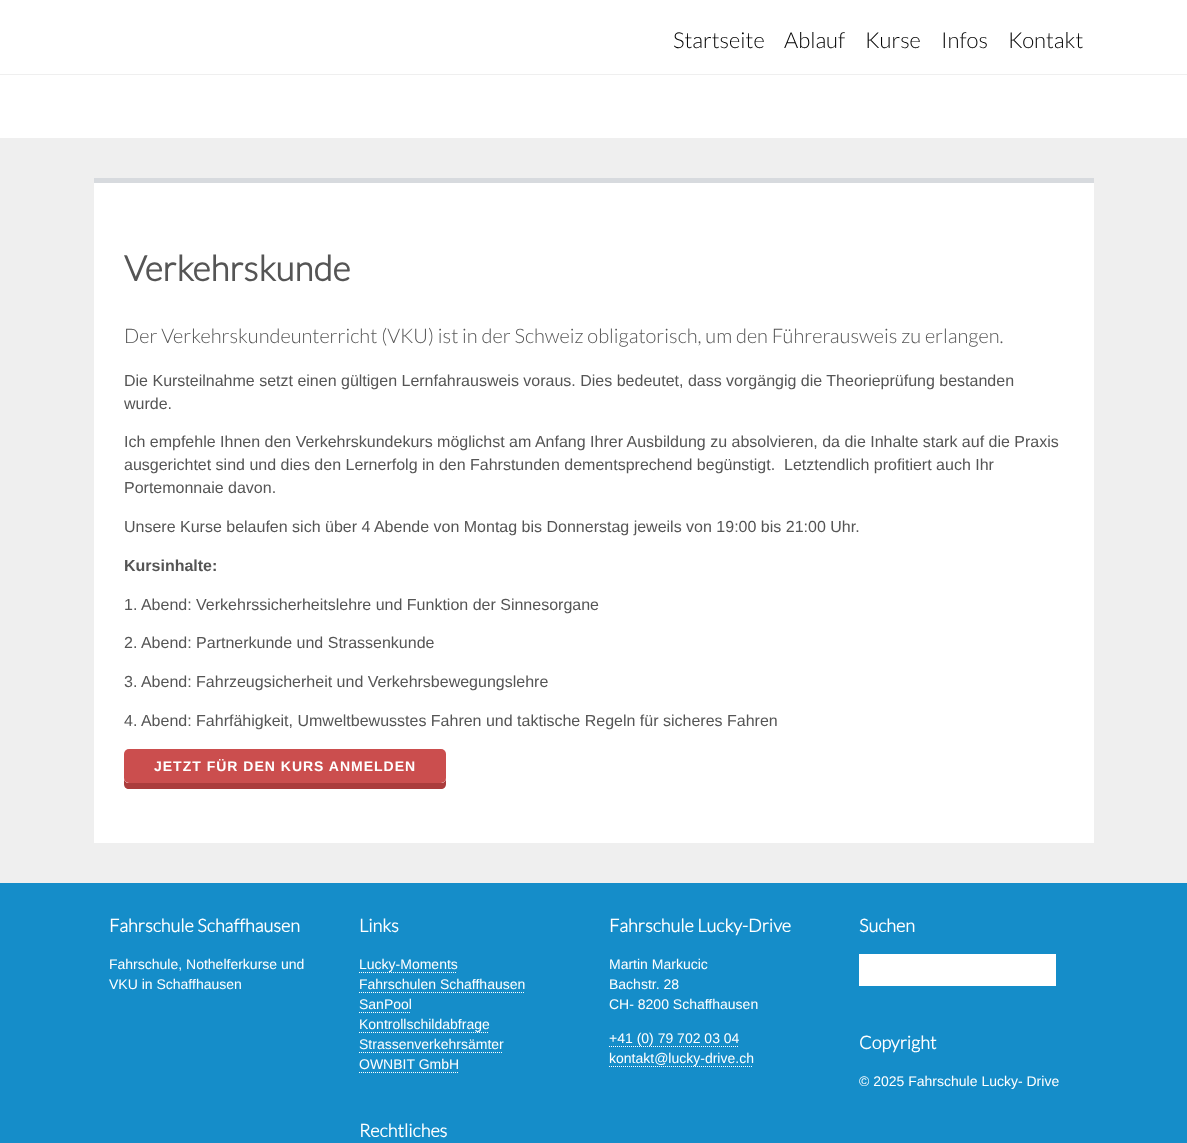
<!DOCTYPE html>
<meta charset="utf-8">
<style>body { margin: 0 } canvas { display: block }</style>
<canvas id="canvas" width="1187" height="1143"></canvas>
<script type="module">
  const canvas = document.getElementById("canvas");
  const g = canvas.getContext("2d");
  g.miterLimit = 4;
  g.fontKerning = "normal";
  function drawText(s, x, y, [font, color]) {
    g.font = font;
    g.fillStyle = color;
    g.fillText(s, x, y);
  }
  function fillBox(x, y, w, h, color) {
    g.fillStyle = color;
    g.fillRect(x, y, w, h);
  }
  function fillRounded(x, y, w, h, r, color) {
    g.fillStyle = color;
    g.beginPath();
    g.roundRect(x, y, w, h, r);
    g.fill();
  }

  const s1 = ["300 22px Lato", "#000000"];
  const s2 = ["bold 35px Lato", "#555555"];
  const s3 = ["300 20px Lato", "#555555"];
  const s4 = ["16px Liberation Sans", "#555555"];
  const s5 = ["bold 16px Liberation Sans", "#555555"];
  const s6 = ["bold 14px Liberation Sans", "#FFFFFF"];
  const s7 = ["bold 18px Lato", "#FFFFFF"];
  const s8 = ["14px Liberation Sans", "#FFFFFF"];

  fillBox(0, 0, 1187, 1143, "#FFFFFF");
  fillBox(0, 74, 1187, 1, "#EFEFEF");
  drawText("Startseite", 673, 48, s1);
  drawText("Ablauf", 784, 48, s1);
  drawText("Kurse", 865, 48, s1);
  drawText("Infos", 941, 48, s1);
  drawText("Kontakt", 1008, 48, s1);
  fillBox(0, 138, 1187, 745, "#EFEFEF");
  fillBox(94, 183, 1000, 660, "#FFFFFF");
  fillBox(94, 178, 1000, 5, "#D7DADE");
  drawText("Verkehrskunde", 124, 281, s2);
  drawText("Der Verkehrskundeunterricht (VKU) ist in der Schweiz obligatorisch, um den Führerausweis zu erlangen.", 124, 343, s3);
  drawText("Die Kursteilnahme setzt einen gültigen Lernfahrausweis voraus. Dies bedeutet, dass vorgängig die Theorieprüfung bestanden", 124, 386, s4);
  drawText("wurde.", 124, 409, s4);
  drawText("Ich empfehle Ihnen den Verkehrskundekurs möglichst am Anfang Ihrer Ausbildung zu absolvieren, da die Inhalte stark auf die Praxis", 124, 447, s4);
  drawText("ausgerichtet sind und dies den Lernerfolg in den Fahrstunden dementsprechend begünstigt.  Letztendlich profitiert auch Ihr", 124, 470, s4);
  drawText("Portemonnaie davon.", 124, 493, s4);
  drawText("Unsere Kurse belaufen sich über 4 Abende von Montag bis Donnerstag jeweils von 19:00 bis 21:00 Uhr.", 124, 532, s4);
  drawText("Kursinhalte:", 124, 571, s5);
  drawText("1. Abend: Verkehrssicherheitslehre und Funktion der Sinnesorgane", 124, 610, s4);
  drawText("2. Abend: Partnerkunde und Strassenkunde", 124, 648, s4);
  drawText("3. Abend: Fahrzeugsicherheit und Verkehrsbewegungslehre", 124, 687, s4);
  drawText("4. Abend: Fahrfähigkeit, Umweltbewusstes Fahren und taktische Regeln für sicheres Fahren", 124, 726, s4);
  g.fillStyle = "#AB3C3C";
  g.beginPath();
  g.moveTo(124, 778);
  g.lineTo(124, 784);
  g.bezierCurveTo(124, 787, 126, 789, 129, 789);
  g.lineTo(441, 789);
  g.bezierCurveTo(444, 789, 446, 787, 446, 784);
  g.lineTo(446, 778);
  g.bezierCurveTo(446, 781, 444, 783, 441, 783);
  g.lineTo(129, 783);
  g.bezierCurveTo(126, 783, 124, 781, 124, 778);
  g.closePath();
  g.fill();
  fillRounded(124, 749, 322, 34, 5, "#CB4E4E");
  g.letterSpacing = "1px";
  drawText("JETZT FÜR DEN KURS ANMELDEN", 154, 771, s6);
  fillBox(0, 883, 1187, 260, "#158DC9");
  g.letterSpacing = "0px";
  drawText("Fahrschule Schaffhausen", 109, 932, s7);
  drawText("Fahrschule, Nothelferkurse und", 109, 969, s8);
  drawText("VKU in Schaffhausen", 109, 989, s8);
  drawText("Links", 359, 932, s7);
  drawText("Lucky-Moments", 359, 969, s8);
  g.beginPath();
  g.moveTo(359, 972.5);
  g.lineTo(457, 972.5);
  g.strokeStyle = "#FFFFFF";
  g.setLineDash([1, 1]);
  g.stroke();
  drawText("Fahrschulen Schaffhausen", 359, 989, s8);
  g.beginPath();
  g.moveTo(359, 992.5);
  g.lineTo(525, 992.5);
  g.stroke();
  drawText("SanPool", 359, 1009, s8);
  g.beginPath();
  g.moveTo(359, 1012.5);
  g.lineTo(411, 1012.5);
  g.stroke();
  drawText("Kontrollschildabfrage", 359, 1029, s8);
  g.beginPath();
  g.moveTo(359, 1032.5);
  g.lineTo(489, 1032.5);
  g.stroke();
  drawText("Strassenverkehrsämter", 359, 1049, s8);
  g.beginPath();
  g.moveTo(359, 1052.5);
  g.lineTo(503, 1052.5);
  g.stroke();
  drawText("OWNBIT GmbH", 359, 1069, s8);
  g.beginPath();
  g.moveTo(359, 1072.5);
  g.lineTo(459, 1072.5);
  g.stroke();
  drawText("Rechtliches", 359, 1137, s7);
  drawText("Fahrschule Lucky-Drive", 609, 932, s7);
  drawText("Martin Markucic", 609, 969, s8);
  drawText("Bachstr. 28", 609, 989, s8);
  drawText("CH- 8200 Schaffhausen", 609, 1009, s8);
  drawText("+41 (0) 79 702 03 04", 609, 1043, s8);
  g.beginPath();
  g.moveTo(609, 1046.5);
  g.lineTo(739, 1046.5);
  g.stroke();
  drawText("kontakt@lucky-drive.ch", 609, 1063, s8);
  g.beginPath();
  g.moveTo(609, 1066.5);
  g.lineTo(753, 1066.5);
  g.stroke();
  drawText("Suchen", 859, 932, s7);
  fillBox(859, 954, 197, 32, "#FFFFFF");
  drawText("Copyright", 859, 1049, s7);
  drawText("© 2025 Fahrschule Lucky- Drive", 859, 1086, s8);
</script>
